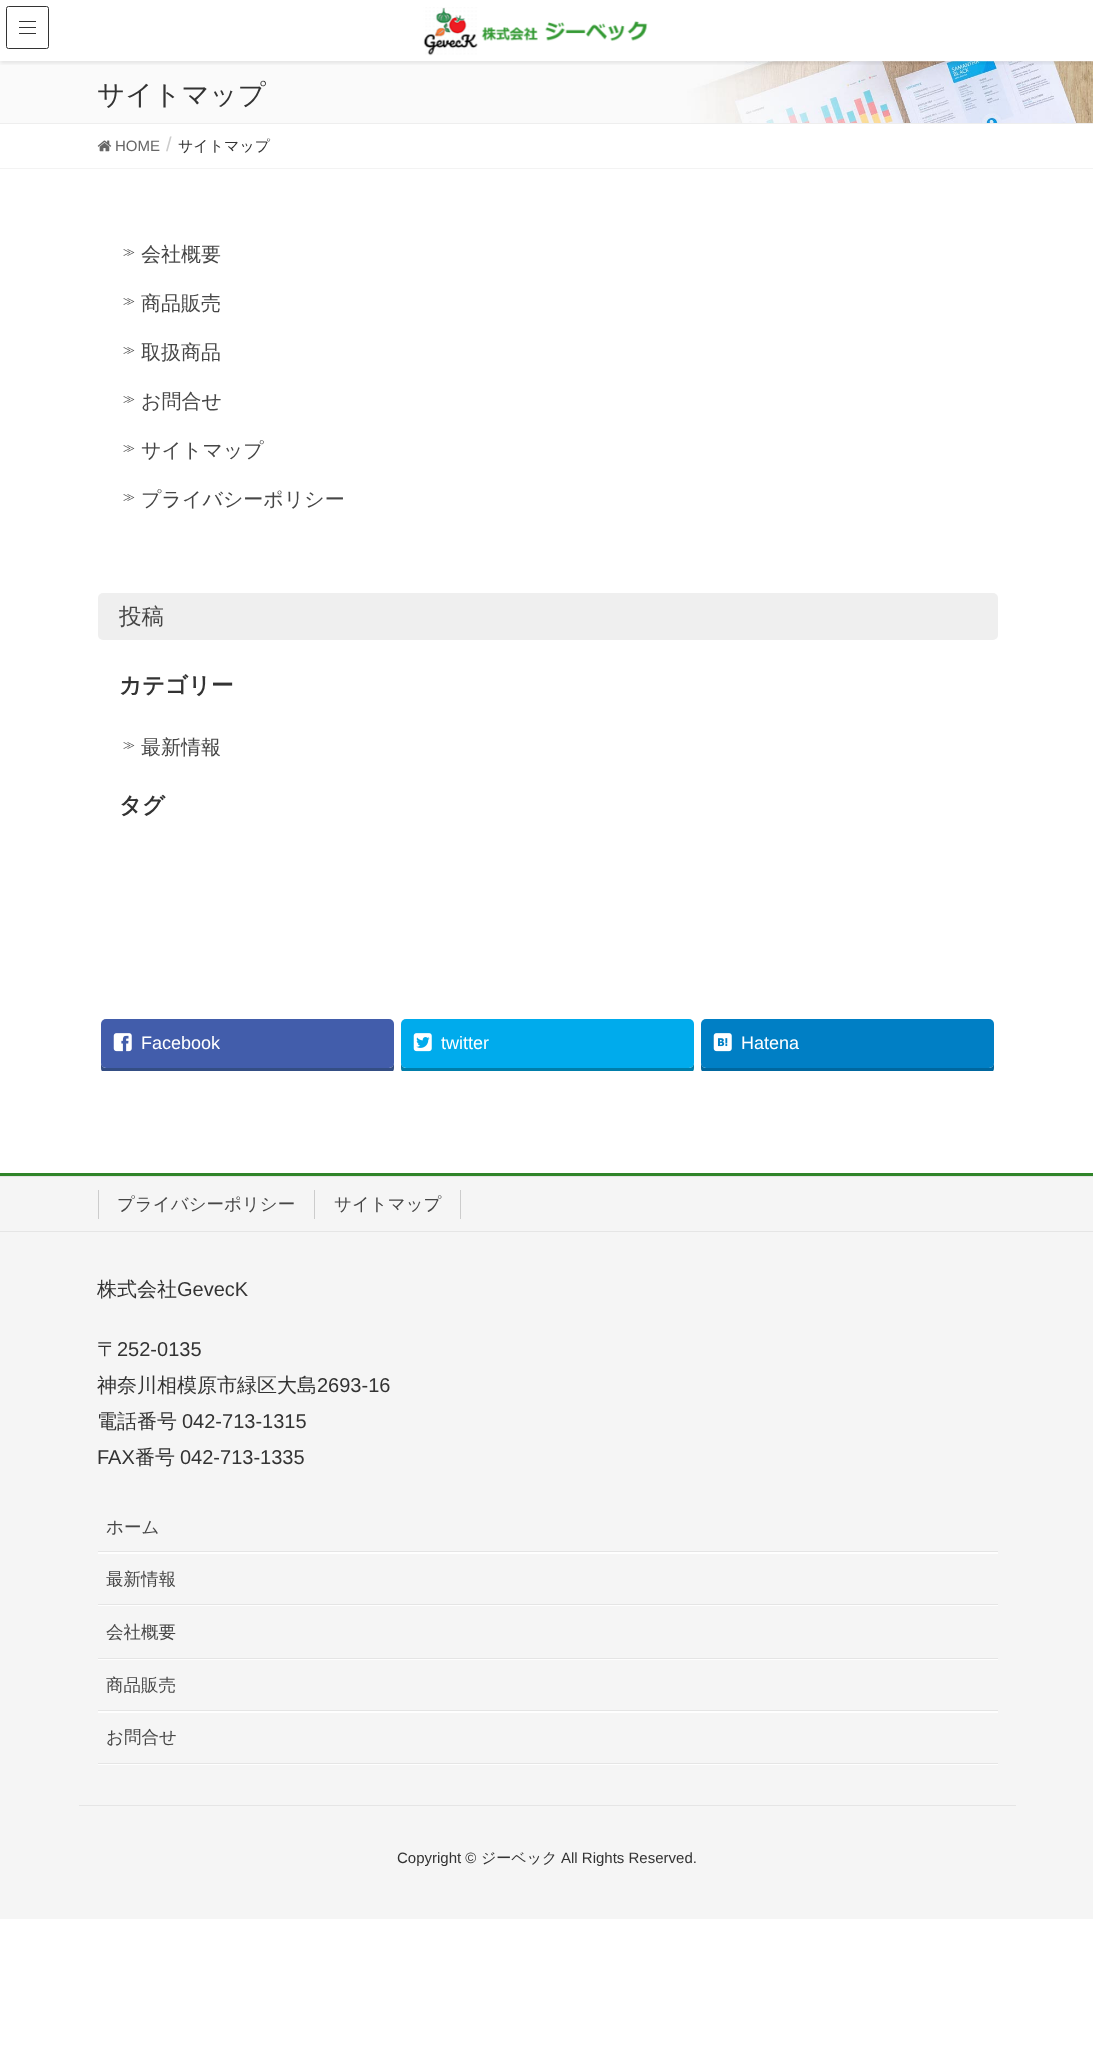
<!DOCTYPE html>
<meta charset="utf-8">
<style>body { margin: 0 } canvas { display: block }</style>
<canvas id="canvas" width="1093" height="2067"></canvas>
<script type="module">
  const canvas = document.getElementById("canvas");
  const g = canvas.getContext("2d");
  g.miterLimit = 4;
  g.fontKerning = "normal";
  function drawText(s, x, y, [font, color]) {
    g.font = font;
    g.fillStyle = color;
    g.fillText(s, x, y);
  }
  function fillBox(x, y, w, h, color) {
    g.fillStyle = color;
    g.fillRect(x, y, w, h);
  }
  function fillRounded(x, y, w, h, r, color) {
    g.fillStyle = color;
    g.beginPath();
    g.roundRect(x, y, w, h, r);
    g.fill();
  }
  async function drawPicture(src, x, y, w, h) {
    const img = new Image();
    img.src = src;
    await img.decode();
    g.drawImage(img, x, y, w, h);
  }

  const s1 = ["500 27.5px WenQuanYi Zen Hei", "#333333"];
  const s2 = ["15px Liberation Sans", "#666666"];
  const s3 = ["20px Liberation Sans", "#CCCCCC"];
  const s4 = ["500 15px WenQuanYi Zen Hei", "#333333"];
  const s5 = ["500 12px WenQuanYi Zen Hei", "#464646"];
  const s6 = ["500 20px WenQuanYi Zen Hei", "#464646"];
  const s7 = ["500 22.5px WenQuanYi Zen Hei", "#464646"];
  const s8 = ["bold 22.5px WenQuanYi Zen Hei", "#333333"];
  const s9 = ["18px Liberation Sans", "#FFFFFF"];
  const s10 = ["500 17.5px WenQuanYi Zen Hei", "#464646"];
  const s11 = ["500 20px WenQuanYi Zen Hei", "#333333"];
  const s12 = ["20px Liberation Sans", "#333333"];
  const s13 = ["15px Liberation Sans", "#333333"];

  fillBox(0, 0, 1093, 2067, "#FFFFFF");
  await drawPicture("pic2.png", 0, 61, 1093, 62);
  g.save();
  g.beginPath();
  g.rect(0, 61, 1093, 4);
  g.clip();
  g.fillStyle = "rgba(0, 0, 0, 0.1)";
  g.filter = "blur(2px)";
  g.beginPath();
  g.rect(0, 1, 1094, 62);
  g.fill();
  g.filter = "none";
  g.restore();
  await drawPicture("pic1.png", 423, 7, 225, 49);
  fillBox(19, 21, 17, 1, "#333333");
  fillBox(19, 27, 17, 1, "#333333");
  fillBox(19, 33, 17, 1, "#333333");
  g.beginPath();
  g.roundRect(6.5, 6.5, 42, 42, 2);
  g.strokeStyle = "#333333";
  g.stroke();
  fillBox(0, 123, 1093, 1, "#EEEEEE");
  drawText("サイトマップ", 97, 104, s1);
  fillBox(0, 168, 1093, 1, "#F3F3F3");
  await drawPicture("pic3.png", 97, 140, 15, 12);
  drawText("HOME", 115, 151, s2);
  drawText("/", 166, 151, s3);
  drawText("サイトマップ", 178, 151, s4);
  drawText("≫", 123, 256, s5);
  drawText("会社概要", 141, 261, s6);
  drawText("≫", 123, 305, s5);
  drawText("商品販売", 141, 310, s6);
  drawText("≫", 123, 354, s5);
  drawText("取扱商品", 141, 359, s6);
  drawText("≫", 123, 403, s5);
  drawText("お問合せ", 141, 408, s6);
  drawText("≫", 123, 452, s5);
  drawText("サイトマップ", 141, 457, s6);
  drawText("≫", 123, 501, s5);
  drawText("プライバシーポリシー", 141, 506, s6);
  fillRounded(98, 593, 900, 47, 5, "#EFEFEF");
  drawText("投稿", 119, 624, s7);
  drawText("カテゴリー", 119, 693, s8);
  drawText("≫", 123, 749, s5);
  drawText("最新情報", 141, 754, s6);
  drawText("タグ", 119, 813, s8);
  g.save();
  g.beginPath();
  g.rect(98, 1015, 900, 56);
  g.clip();
  g.fillStyle = "#344E84";
  g.beginPath();
  g.moveTo(101, 1027);
  g.lineTo(101, 1068);
  g.bezierCurveTo(101, 1071, 103, 1073, 106, 1073);
  g.lineTo(389, 1073);
  g.bezierCurveTo(392, 1073, 394, 1071, 394, 1068);
  g.lineTo(394, 1027);
  g.lineTo(394, 1062);
  g.bezierCurveTo(394, 1065, 392, 1068, 389, 1068);
  g.lineTo(106, 1068);
  g.bezierCurveTo(103, 1068, 101, 1065, 101, 1062);
  g.closePath();
  g.fill();
  g.restore();
  fillRounded(101, 1019, 293, 49, 5, "#425DAB");
  await drawPicture("pic4.png", 113, 1033, 19, 19);
  drawText("Facebook", 141, 1049, s9);
  g.save();
  g.beginPath();
  g.rect(98, 1015, 900, 56);
  g.clip();
  g.fillStyle = "#007EAA";
  g.beginPath();
  g.moveTo(401, 1027);
  g.lineTo(401, 1068);
  g.bezierCurveTo(401, 1071, 403, 1073, 406, 1073);
  g.lineTo(689, 1073);
  g.bezierCurveTo(692, 1073, 694, 1071, 694, 1068);
  g.lineTo(694, 1027);
  g.lineTo(694, 1062);
  g.bezierCurveTo(694, 1065, 692, 1068, 689, 1068);
  g.lineTo(406, 1068);
  g.bezierCurveTo(403, 1068, 401, 1065, 401, 1062);
  g.closePath();
  g.fill();
  g.restore();
  fillRounded(401, 1019, 293, 49, 5, "#00ABEC");
  await drawPicture("pic5.png", 413, 1033, 19, 19);
  drawText("twitter", 441, 1049, s9);
  g.save();
  g.beginPath();
  g.rect(98, 1015, 900, 56);
  g.clip();
  g.fillStyle = "#00679F";
  g.beginPath();
  g.moveTo(701, 1027);
  g.lineTo(701, 1068);
  g.bezierCurveTo(701, 1071, 703, 1073, 706, 1073);
  g.lineTo(989, 1073);
  g.bezierCurveTo(992, 1073, 994, 1071, 994, 1068);
  g.lineTo(994, 1027);
  g.lineTo(994, 1062);
  g.bezierCurveTo(994, 1065, 992, 1068, 989, 1068);
  g.lineTo(706, 1068);
  g.bezierCurveTo(703, 1068, 701, 1065, 701, 1062);
  g.closePath();
  g.fill();
  g.restore();
  fillRounded(701, 1019, 293, 49, 5, "#007FC5");
  await drawPicture("pic6.png", 713, 1033, 19, 19);
  drawText("Hatena", 741, 1049, s9);
  fillBox(0, 1177, 1093, 742, "#F5F5F5");
  fillBox(0, 1173, 1093, 3, "#308429");
  fillBox(0, 1176, 1093, 1, "#E5E5E5");
  fillBox(0, 1231, 1093, 1, "#E5E5E5");
  fillBox(98, 1190, 1, 29, "#CCCCCC");
  drawText("プライバシーポリシー", 117, 1210, s10);
  fillBox(460, 1190, 1, 29, "#CCCCCC");
  fillBox(314, 1190, 1, 29, "#CCCCCC");
  drawText("サイトマップ", 334, 1210, s10);
  drawText("株式会社", 97, 1296, s11);
  drawText("GevecK", 177, 1296, s12);
  drawText("〒", 97, 1356, s11);
  drawText("252-0135", 117, 1356, s12);
  drawText("神奈川相模原市緑区大島", 97, 1392, s11);
  drawText("2693-16", 317, 1392, s12);
  drawText("電話番号", 97, 1428, s11);
  drawText("042-713-1315", 182, 1428, s12);
  drawText("FAX", 97, 1464, s12);
  drawText("番号", 135, 1464, s11);
  drawText("042-713-1335", 180, 1464, s12);
  g.fillStyle = "#FEFEFE";
  g.beginPath();
  g.moveTo(98, 1552);
  g.lineTo(98, 1554);
  g.lineTo(998, 1554);
  g.lineTo(998, 1501);
  g.lineTo(998, 1552);
  g.closePath();
  g.fill();
  fillBox(98, 1551, 900, 1, "#E5E5E5");
  drawText("ホーム", 106, 1533, s10);
  g.fillStyle = "#FEFEFE";
  g.beginPath();
  g.moveTo(98, 1605);
  g.lineTo(98, 1606);
  g.lineTo(998, 1606);
  g.lineTo(998, 1554);
  g.lineTo(998, 1605);
  g.closePath();
  g.fill();
  fillBox(98, 1604, 900, 1, "#E5E5E5");
  drawText("最新情報", 106, 1585, s10);
  g.fillStyle = "#FEFEFE";
  g.beginPath();
  g.moveTo(98, 1659);
  g.lineTo(98, 1660);
  g.lineTo(998, 1660);
  g.lineTo(998, 1606);
  g.lineTo(998, 1659);
  g.closePath();
  g.fill();
  fillBox(98, 1658, 900, 1, "#E5E5E5");
  drawText("会社概要", 106, 1638, s10);
  g.fillStyle = "#FEFEFE";
  g.beginPath();
  g.moveTo(98, 1711);
  g.lineTo(98, 1713);
  g.lineTo(998, 1713);
  g.lineTo(998, 1660);
  g.lineTo(998, 1711);
  g.closePath();
  g.fill();
  fillBox(98, 1710, 900, 1, "#E5E5E5");
  drawText("商品販売", 106, 1691, s10);
  g.fillStyle = "#FEFEFE";
  g.beginPath();
  g.moveTo(98, 1764);
  g.lineTo(98, 1765);
  g.lineTo(998, 1765);
  g.lineTo(998, 1713);
  g.lineTo(998, 1764);
  g.closePath();
  g.fill();
  fillBox(98, 1763, 900, 1, "#E5E5E5");
  drawText("お問合せ", 106, 1743, s10);
  fillBox(79, 1805, 937, 1, "#E5E5E5");
  drawText("Copyright ©", 397, 1863, s13);
  drawText("ジーベック", 481, 1863, s4);
  drawText("All Rights Reserved.", 561, 1863, s13);
</script>
